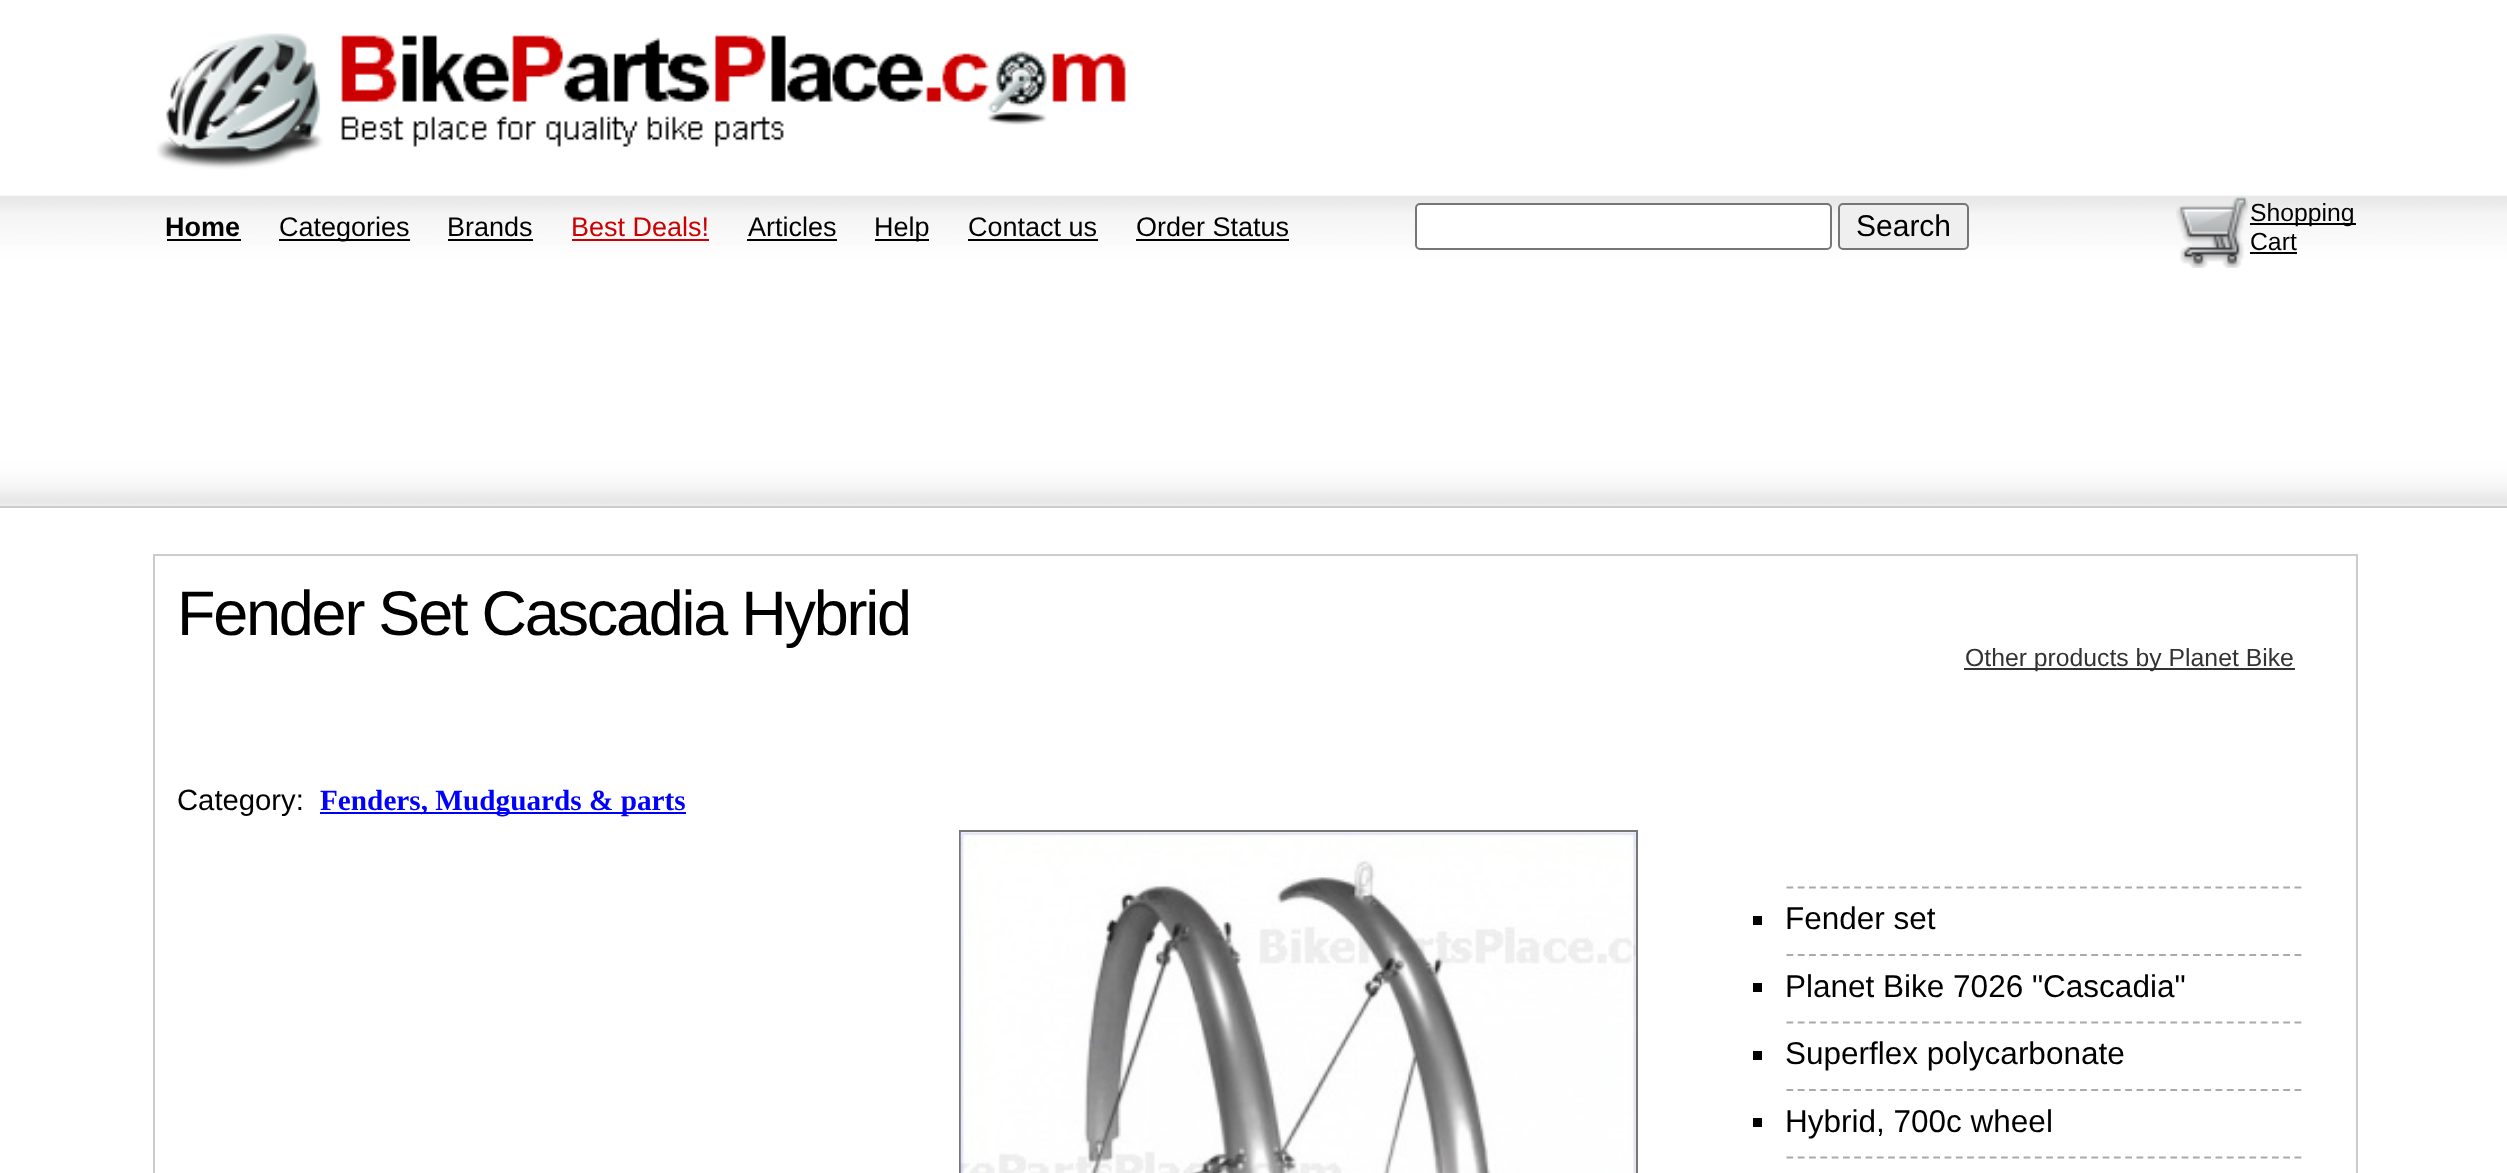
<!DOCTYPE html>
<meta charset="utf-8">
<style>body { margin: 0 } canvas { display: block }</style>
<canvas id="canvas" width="2507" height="1173"></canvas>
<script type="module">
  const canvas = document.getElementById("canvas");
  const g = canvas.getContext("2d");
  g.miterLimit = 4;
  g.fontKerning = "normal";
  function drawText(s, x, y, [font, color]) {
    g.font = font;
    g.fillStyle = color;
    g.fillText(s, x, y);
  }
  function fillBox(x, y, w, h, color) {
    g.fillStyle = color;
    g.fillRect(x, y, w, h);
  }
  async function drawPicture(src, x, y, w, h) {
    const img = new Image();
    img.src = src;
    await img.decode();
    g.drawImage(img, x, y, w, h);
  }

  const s1 = ["bold 27px Liberation Sans", "#000000"];
  const s2 = ["27px Liberation Sans", "#000000"];
  const s3 = ["27px Liberation Sans", "#CC0000"];
  const s4 = ["30px Liberation Sans", "#000000"];
  const s5 = ["24.75px Liberation Sans", "#000000"];
  const s6 = ["63px Liberation Sans", "#000000"];
  const s7 = ["24.75px Liberation Sans", "#333333"];
  const s8 = ["29.25px Liberation Sans", "#000000"];
  const s9 = ["bold 29.25px Liberation Serif", "#0000FF"];
  const s10 = ["31.5px Liberation Sans", "#000000"];

  fillBox(0, 0, 2507, 1173, "#FFFFFF");
  await drawPicture("pic1.png", 156, 33, 970, 137);
  await drawPicture("pic2.png", 0, 195, 2507, 311);
  fillBox(0, 506, 2507, 2, "#CCCCCC");
  drawText("Home", 165, 236, s1);
  fillBox(167, 239, 74, 2, "#000000");
  fillBox(279, 239, 131, 2, "#000000");
  drawText("Categories", 279, 236, s2);
  drawText("Brands", 447, 236, s2);
  fillBox(448, 239, 85, 2, "#000000");
  drawText("Best Deals!", 571, 236, s3);
  fillBox(572, 239, 137, 2, "#CC0000");
  drawText("Articles", 748, 236, s2);
  fillBox(747, 239, 90, 2, "#000000");
  fillBox(875, 239, 54, 2, "#000000");
  drawText("Help", 874, 236, s2);
  drawText("Contact us", 968, 236, s2);
  fillBox(968, 239, 130, 2, "#000000");
  drawText("Order Status", 1136, 236, s2);
  fillBox(1136, 239, 153, 2, "#000000");
  g.fillStyle = "#FFFFFF";
  g.beginPath();
  g.roundRect(1416, 204, 415, 45, 4);
  g.fill();
  g.strokeStyle = "#767676";
  g.lineWidth = 2;
  g.stroke();
  g.fillStyle = "#EFEFEF";
  g.beginPath();
  g.roundRect(1839, 204, 129, 45, 4);
  g.fill();
  g.stroke();
  drawText("Search", 1856, 236, s4);
  await drawPicture("pic3.png", 2176, 195, 72, 73);
  fillBox(2250, 223, 106, 2, "#000000");
  drawText("Shopping", 2250, 221, s5);
  drawText("Cart", 2250, 250, s5);
  fillBox(2250, 252, 47, 2, "#000000");
  g.strokeStyle = "#CCCCCC";
  g.strokeRect(154, 555, 2203, 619);
  g.letterSpacing = "-2.25px";
  drawText("Fender Set Cascadia Hybrid", 177, 635, s6);
  fillBox(1964, 668, 331, 2, "#333333");
  g.letterSpacing = "0px";
  drawText("Other products by Planet Bike", 1965, 666, s7);
  drawText("Category:", 177, 810, s8);
  fillBox(320, 812, 366, 2, "#0000FF");
  drawText("Fenders, Mudguards & parts", 320, 810, s9);
  g.strokeStyle = "#777777";
  g.strokeRect(960, 831, 677, 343);
  await drawPicture("pic4.png", 960, 832, 676, 341);
  g.beginPath();
  g.moveTo(1786.5, 887.5);
  g.lineTo(2302, 887.5);
  g.strokeStyle = "#AAAAAA";
  g.lineWidth = 2.2;
  g.setLineDash([6.75, 4.54]);
  g.stroke();
  fillBox(1753, 916, 9, 9, "#000000");
  drawText("Fender set", 1785, 929, s10);
  g.beginPath();
  g.moveTo(1786.5, 955);
  g.lineTo(2302, 955);
  g.stroke();
  fillBox(1753, 983, 9, 9, "#000000");
  drawText("Planet Bike 7026 \"Cascadia\"", 1785, 997, s10);
  g.beginPath();
  g.moveTo(1786.5, 1022.5);
  g.lineTo(2302, 1022.5);
  g.stroke();
  fillBox(1753, 1051, 9, 9, "#000000");
  drawText("Superflex polycarbonate", 1785, 1064, s10);
  g.beginPath();
  g.moveTo(1786.5, 1090);
  g.lineTo(2302, 1090);
  g.stroke();
  fillBox(1753, 1118, 9, 9, "#000000");
  drawText("Hybrid, 700c wheel", 1785, 1132, s10);
  g.beginPath();
  g.moveTo(1786.5, 1157.5);
  g.lineTo(2302, 1157.5);
  g.stroke();
</script>
